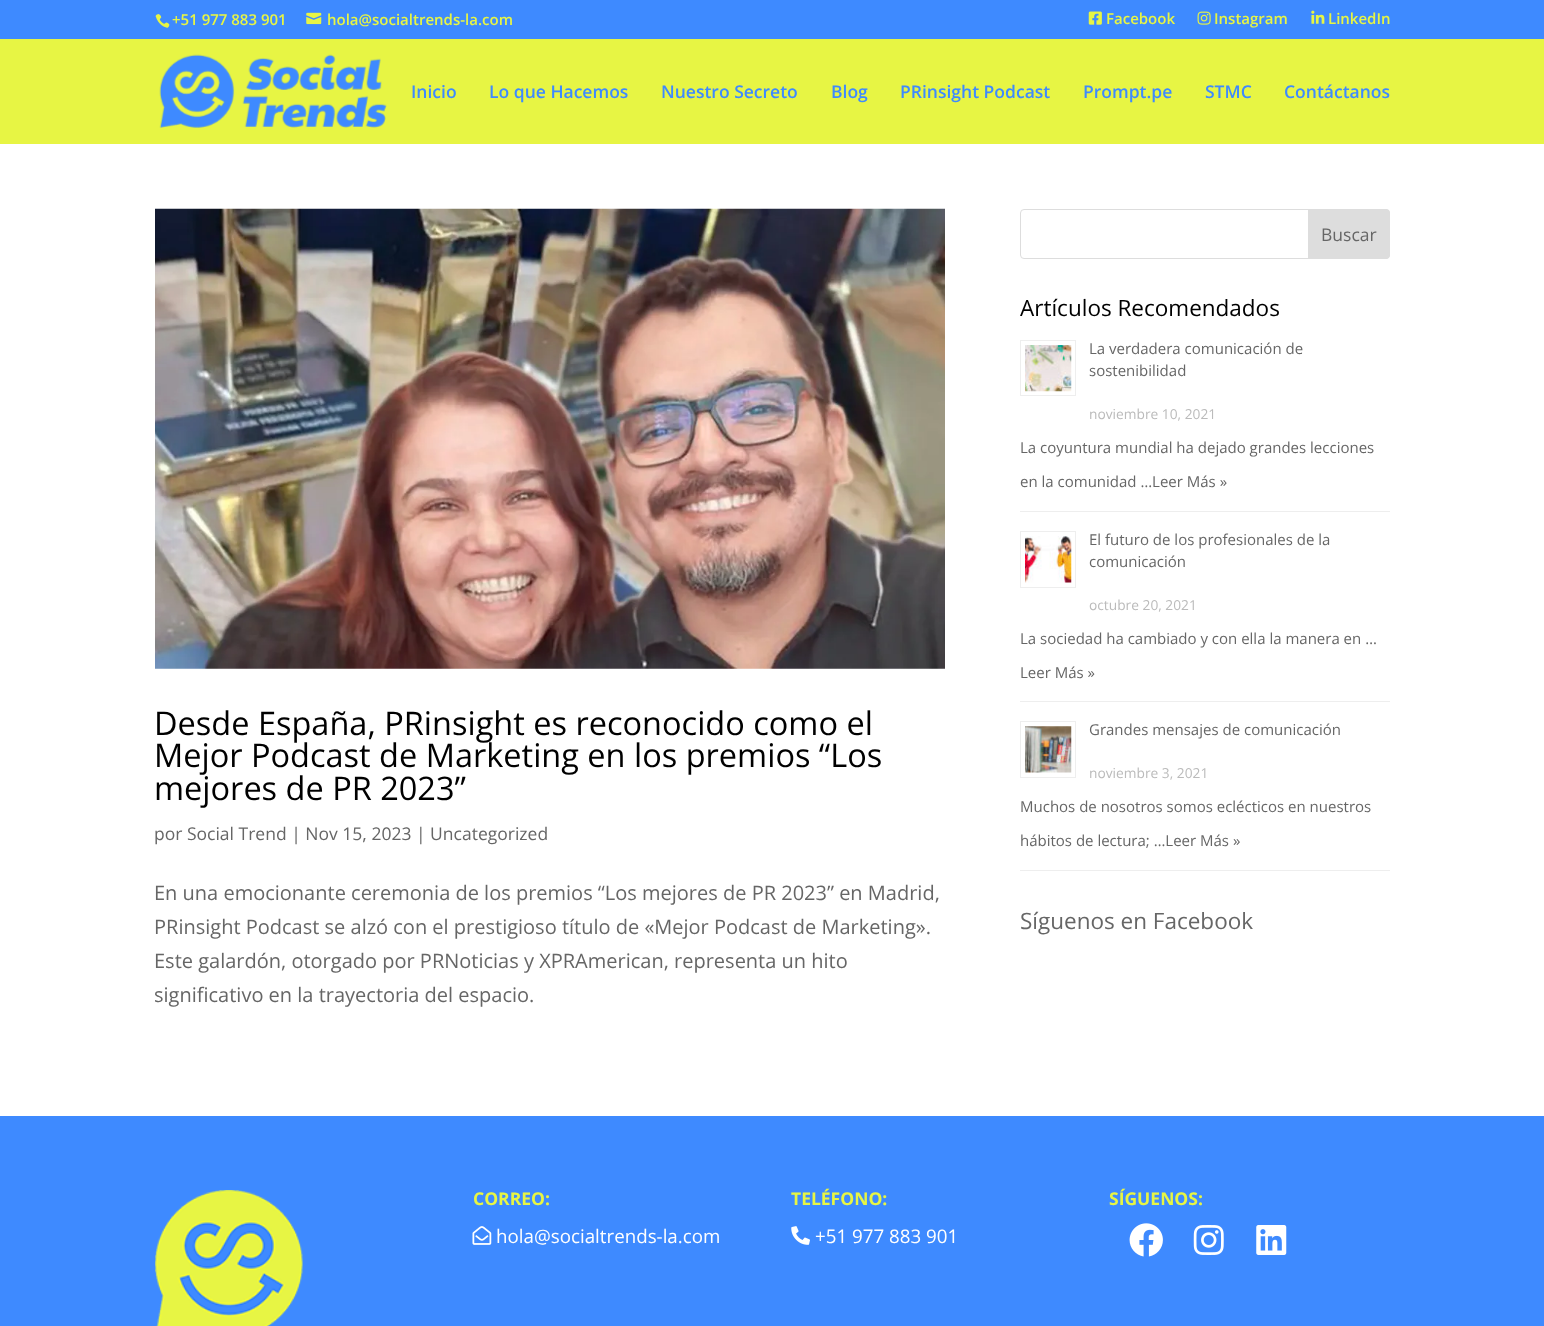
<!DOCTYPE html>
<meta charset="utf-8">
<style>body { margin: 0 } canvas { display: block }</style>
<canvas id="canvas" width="1544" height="1326"></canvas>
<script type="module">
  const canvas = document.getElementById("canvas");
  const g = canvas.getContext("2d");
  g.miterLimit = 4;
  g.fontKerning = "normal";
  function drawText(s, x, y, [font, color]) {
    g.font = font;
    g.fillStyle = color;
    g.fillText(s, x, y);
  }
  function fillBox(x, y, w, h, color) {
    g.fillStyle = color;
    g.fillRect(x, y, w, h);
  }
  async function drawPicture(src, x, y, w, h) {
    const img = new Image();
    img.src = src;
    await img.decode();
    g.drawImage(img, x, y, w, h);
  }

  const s1 = ["600 15px Open Sans", "#E7F544"];
  const s2 = ["600 17.5px Open Sans", "#3E8AFF"];
  const s3 = ["32.5px Open Sans", "#000000"];
  const s4 = ["17.5px Open Sans", "#666666"];
  const s5 = ["20px Open Sans", "#666666"];
  const s6 = ["22.5px Open Sans", "#000000"];
  const s7 = ["15px Open Sans", "#666666"];
  const s8 = ["13.75px Open Sans", "#BBBBBB"];
  const s9 = ["22.5px Open Sans", "#666666"];
  const s10 = ["bold 17.5px Open Sans", "#E7F544"];
  const s11 = ["18.75px Open Sans", "#FFFFFF"];

  fillBox(0, 0, 1544, 1326, "#FFFFFF");
  fillBox(0, 0, 1544, 39, "#3E8AFF");
  await drawPicture("pic1.png", 155, 14, 15, 14);
  drawText("+51 977 883 901", 172, 25, s1);
  await drawPicture("pic2.png", 306, 12, 16, 13);
  drawText("hola@socialtrends-la.com", 327, 25, s1);
  await drawPicture("pic3.png", 1088, 11, 14, 14);
  drawText("Facebook", 1106, 24, s1);
  await drawPicture("pic4.png", 1197, 11, 14, 14);
  drawText("Instagram", 1214, 24, s1);
  await drawPicture("pic5.png", 1311, 10, 14, 14);
  drawText("LinkedIn", 1328, 24, s1);
  fillBox(0, 39, 1544, 105, "#E7F544");
  await drawPicture("pic6.png", 159, 54, 228, 74);
  drawText("Inicio", 411, 98, s2);
  drawText("Lo que Hacemos", 489, 98, s2);
  drawText("Nuestro Secreto", 661, 98, s2);
  drawText("Blog", 831, 98, s2);
  drawText("PRinsight Podcast", 900, 98, s2);
  drawText("Prompt.pe", 1083, 98, s2);
  drawText("STMC", 1205, 98, s2);
  drawText("Contáctanos", 1284, 98, s2);
  await drawPicture("pic7.png", 155, 208, 790, 461);
  drawText("Desde España, PRinsight es reconocido como el", 154, 735, s3);
  drawText("Mejor Podcast de Marketing en los premios “Los", 154, 767, s3);
  drawText("mejores de PR 2023”", 154, 800, s3);
  drawText("por Social Trend | Nov 15, 2023 | Uncategorized", 154, 840, s4);
  drawText("En una emocionante ceremonia de los premios “Los mejores de PR 2023” en Madrid,", 154, 900, s5);
  drawText("PRinsight Podcast se alzó con el prestigioso título de «Mejor Podcast de Marketing».", 154, 934, s5);
  drawText("Este galardón, otorgado por PRNoticias y XPRAmerican, representa un hito", 154, 968, s5);
  drawText("significativo en la trayectoria del espacio.", 154, 1002, s5);
  g.beginPath();
  g.roundRect(1020.5, 209.5, 369, 49, 3.5);
  g.strokeStyle = "#DDDDDD";
  g.stroke();
  g.fillStyle = "#DDDDDD";
  g.beginPath();
  g.roundRect(1308.5, 209.5, 81, 49, [0, 3.5, 3.5, 0]);
  g.fill();
  g.stroke();
  drawText("Buscar", 1321, 241, s4);
  drawText("Artículos Recomendados", 1020, 316, s6);
  fillBox(1020, 511, 370, 1, "#EEEEEE");
  g.strokeStyle = "#EEEEEE";
  g.strokeRect(1020.5, 340.5, 55, 55);
  await drawPicture("pic8.png", 1025, 345, 47, 47);
  drawText("La verdadera comunicación de", 1089, 354, s7);
  drawText("sostenibilidad", 1089, 376, s7);
  drawText("noviembre 10, 2021", 1089, 419, s8);
  drawText("La coyuntura mundial ha dejado grandes lecciones", 1020, 453, s7);
  drawText("en la comunidad …Leer Más »", 1020, 487, s7);
  fillBox(1020, 701, 370, 1, "#EEEEEE");
  g.strokeRect(1020.5, 531.5, 55, 56);
  await drawPicture("pic9.png", 1025, 536, 47, 47);
  drawText("El futuro de los profesionales de la", 1089, 545, s7);
  drawText("comunicación", 1089, 567, s7);
  drawText("octubre 20, 2021", 1089, 610, s8);
  drawText("La sociedad ha cambiado y con ella la manera en …", 1020, 644, s7);
  drawText("Leer Más »", 1020, 678, s7);
  fillBox(1020, 870, 370, 1, "#EEEEEE");
  g.strokeRect(1020.5, 721.5, 55, 56);
  await drawPicture("pic10.png", 1025, 726, 47, 47);
  drawText("Grandes mensajes de comunicación", 1089, 735, s7);
  drawText("noviembre 3, 2021", 1089, 778, s8);
  drawText("Muchos de nosotros somos eclécticos en nuestros", 1020, 812, s7);
  drawText("hábitos de lectura; …Leer Más »", 1020, 846, s7);
  drawText("Síguenos en Facebook", 1020, 929, s9);
  fillBox(0, 1116, 1544, 210, "#3E8AFF");
  await drawPicture("pic11.png", 155, 1190, 148, 136);
  drawText("CORREO:", 473, 1205, s10);
  await drawPicture("pic12.png", 472, 1226, 20, 19);
  drawText("hola@socialtrends-la.com", 496, 1243, s11);
  drawText("TELÉFONO:", 791, 1205, s10);
  await drawPicture("pic13.png", 791, 1226, 19, 19);
  drawText("+51 977 883 901", 815, 1243, s11);
  drawText("SÍGUENOS:", 1109, 1205, s10);
  await drawPicture("pic14.png", 1129, 1223, 34, 34);
  await drawPicture("pic15.png", 1193, 1225, 31, 30);
  await drawPicture("pic16.png", 1256, 1225, 31, 30);
</script>
